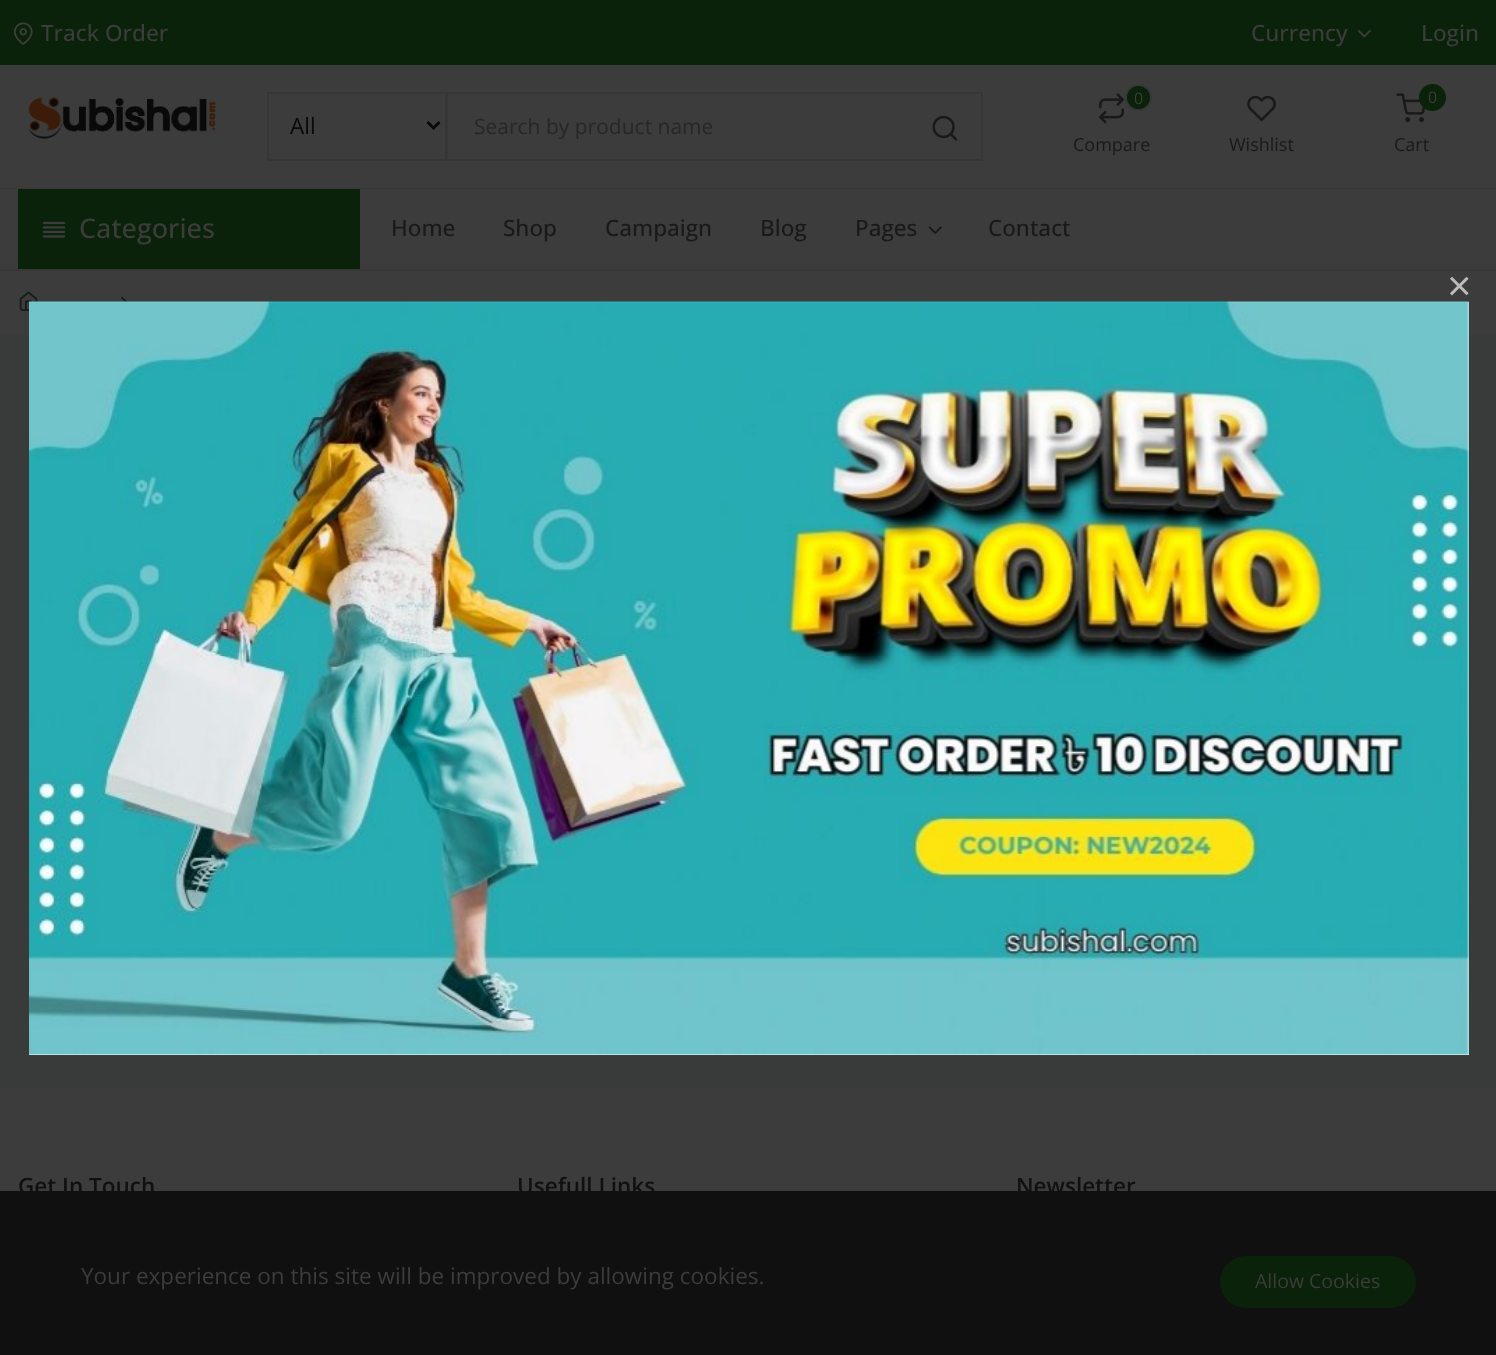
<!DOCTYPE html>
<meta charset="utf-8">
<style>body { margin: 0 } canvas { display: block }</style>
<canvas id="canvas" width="1496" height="1355"></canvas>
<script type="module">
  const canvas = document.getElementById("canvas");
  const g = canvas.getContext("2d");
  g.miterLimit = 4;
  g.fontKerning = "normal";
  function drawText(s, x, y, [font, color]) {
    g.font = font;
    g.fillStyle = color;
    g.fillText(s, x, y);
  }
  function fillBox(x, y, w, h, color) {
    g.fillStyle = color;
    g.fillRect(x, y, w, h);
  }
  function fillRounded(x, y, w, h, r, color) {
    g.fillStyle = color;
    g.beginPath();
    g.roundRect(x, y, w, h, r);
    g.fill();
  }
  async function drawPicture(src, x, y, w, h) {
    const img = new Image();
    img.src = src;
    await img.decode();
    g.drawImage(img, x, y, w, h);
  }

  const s1 = ["500 22.5px Open Sans", "#3C3C3C"];
  const s2 = ["22.5px Open Sans", "#090909"];
  const s3 = ["21px Open Sans", "#272727"];
  const s4 = ["16px Open Sans", "#3C3C3C"];
  const s5 = ["18px Open Sans", "#191919"];
  const s6 = ["500 27px Open Sans", "#3C3C3C"];
  const s7 = ["500 22.5px Open Sans", "#191919"];
  const s8 = ["42px Liberation Sans", "#BBBBBB"];
  const s9 = ["600 22.5px Open Sans", "#101010"];
  const s10 = ["22.5px Open Sans", "#3C3C3C"];
  const s11 = ["19.5px Open Sans", "#3C3C3C"];

  fillBox(0, 0, 1496, 1355, "#393A3A");
  fillBox(0, 0, 1496, 65, "#092209");
  await drawPicture("pic1.png", 13, 22, 20, 23);
  drawText("Track Order", 41, 41, s1);
  drawText("Currency", 1251, 41, s1);
  await drawPicture("pic2.png", 1357, 30, 14, 8);
  drawText("Login", 1421, 41, s1);
  fillBox(0, 65, 1496, 123, "#3C3C3C");
  fillBox(0, 188, 1496, 1, "#373737");
  await drawPicture("pic3.png", 28, 97, 188, 42);
  g.strokeStyle = "#363636";
  g.lineWidth = 2;
  g.strokeRect(268, 93, 178, 67);
  g.beginPath();
  g.moveTo(427.5, 122);
  g.lineTo(433.5, 128);
  g.lineTo(439.5, 122);
  g.strokeStyle = "#090909";
  g.lineWidth = 3;
  g.stroke();
  drawText("All", 290, 134, s2);
  g.strokeStyle = "#363636";
  g.lineWidth = 2;
  g.strokeRect(447, 93, 535, 67);
  drawText("Search by product name", 474, 134, s3);
  await drawPicture("pic4.png", 932, 115, 26, 26);
  await drawPicture("pic5.png", 1099, 93, 25, 31);
  g.fillStyle = "#092209";
  g.beginPath();
  g.arc(1138.5, 97.5, 12.5, 0, Math.PI * 2);
  g.fill();
  g.strokeStyle = "#373737";
  g.stroke();
  drawText("0", 1134, 104, s4);
  drawText("Compare", 1073, 151, s5);
  await drawPicture("pic6.png", 1247, 95, 29, 27);
  drawText("Wishlist", 1229, 151, s5);
  await drawPicture("pic7.png", 1396, 93, 30, 30);
  g.fillStyle = "#092209";
  g.beginPath();
  g.arc(1432.5, 97.5, 13.5, 0, Math.PI * 2);
  g.fill();
  drawText("0", 1428, 103, s4);
  drawText("Cart", 1394, 151, s5);
  fillBox(0, 189, 1496, 80, "#3C3C3C");
  fillBox(18, 189, 342, 80, "#092209");
  await drawPicture("pic8.png", 42, 221, 24, 17);
  drawText("Categories", 79, 238, s6);
  drawText("Home", 391, 236, s7);
  drawText("Shop", 503, 236, s7);
  drawText("Campaign", 605, 236, s7);
  drawText("Blog", 760, 236, s7);
  drawText("Pages", 855, 236, s7);
  await drawPicture("pic9.png", 928, 226, 14, 8);
  drawText("Contact", 988, 236, s7);
  fillBox(0, 271, 1496, 64, "#3C3C3C");
  fillBox(0, 269, 1496, 2, "#373737");
  await drawPicture("pic10.png", 19, 291, 19, 20);
  await drawPicture("pic11.png", 121, 296, 7, 6);
  fillBox(29, 302, 1440, 753, "#FFFFFF");
  drawText("×", 1447, 300, s8);
  await drawPicture("pic12.png", 29, 301, 1440, 755);
  fillBox(0, 1088, 1496, 103, "#3C3C3C");
  drawText("Get In Touch", 18, 1194, s9);
  drawText("Usefull Links", 517, 1194, s9);
  drawText("Newsletter", 1016, 1194, s9);
  fillBox(0, 1191, 1496, 164, "#101010");
  drawText("Your experience on this site will be improved by allowing cookies.", 81, 1284, s10);
  fillRounded(1220, 1256, 196, 52, 26, "#092209");
  drawText("Allow Cookies", 1255, 1288, s11);
</script>
